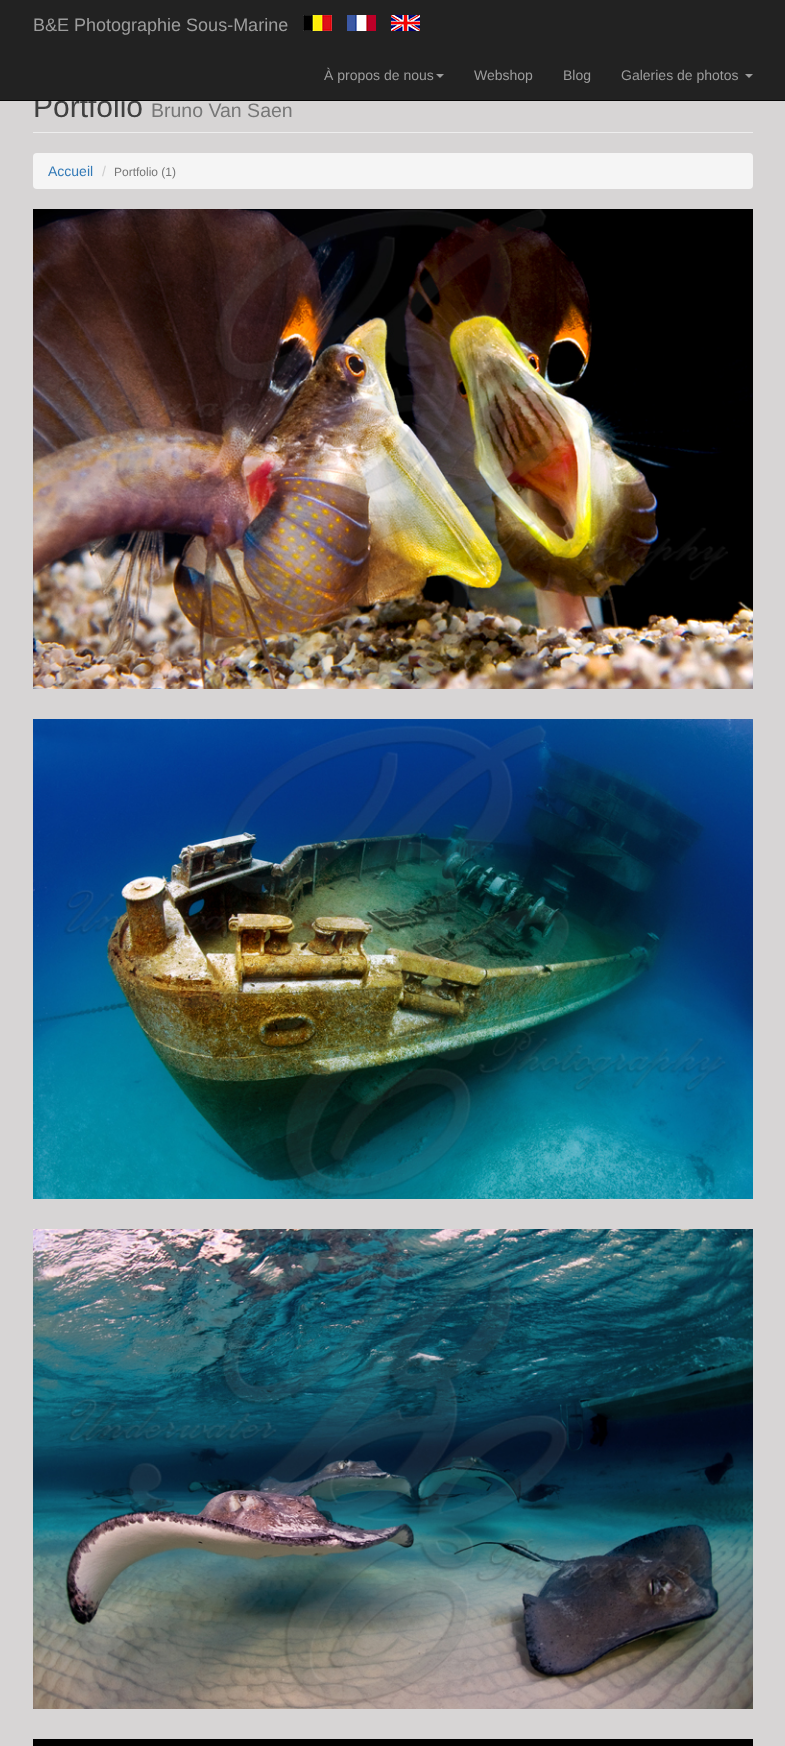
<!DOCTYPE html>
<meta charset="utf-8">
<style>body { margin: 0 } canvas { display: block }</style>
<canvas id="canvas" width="785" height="1746"></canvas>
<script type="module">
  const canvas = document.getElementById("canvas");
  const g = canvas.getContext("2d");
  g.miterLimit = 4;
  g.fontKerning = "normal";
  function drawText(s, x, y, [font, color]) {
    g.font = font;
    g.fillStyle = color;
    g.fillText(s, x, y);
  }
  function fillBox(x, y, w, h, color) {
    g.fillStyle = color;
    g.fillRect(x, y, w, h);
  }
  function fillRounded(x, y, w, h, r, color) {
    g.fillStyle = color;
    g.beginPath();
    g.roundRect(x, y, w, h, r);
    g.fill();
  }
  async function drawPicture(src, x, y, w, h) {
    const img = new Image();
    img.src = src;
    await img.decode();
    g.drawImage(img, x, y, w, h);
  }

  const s1 = ["30px Liberation Sans", "#404040"];
  const s2 = ["18px Liberation Sans", "#9D9D9D"];
  const s3 = ["14px Liberation Sans", "#9D9D9D"];
  const s4 = ["19.5px Liberation Sans", "#777777"];
  const s5 = ["14px Liberation Sans", "#337AB7"];
  const s6 = ["14px Liberation Sans", "#CCCCCC"];
  const s7 = ["12px Liberation Sans", "#777777"];

  fillBox(0, 0, 785, 1746, "#D7D5D5");
  drawText("Portfolio", 33, 117, s1);
  fillBox(0, 0, 785, 100, "#222222");
  fillBox(0, 100, 785, 1, "#080808");
  drawText("B&E Photographie Sous-Marine", 33, 31, s2);
  await drawPicture("pic1.png", 303, 15, 29, 16);
  await drawPicture("pic2.png", 347, 15, 29, 16);
  await drawPicture("pic3.png", 391, 15, 29, 16);
  drawText("À propos de nous", 324, 80, s3);
  g.beginPath();
  g.moveTo(436, 74);
  g.lineTo(444, 74);
  g.lineTo(440, 78);
  g.closePath();
  g.fill();
  drawText("Webshop", 474, 80, s3);
  drawText("Blog", 563, 80, s3);
  drawText("Galeries de photos", 621, 80, s3);
  g.beginPath();
  g.moveTo(745, 74);
  g.lineTo(753, 74);
  g.lineTo(749, 78);
  g.closePath();
  g.fill();
  fillBox(33, 132, 720, 1, "#EEEEEE");
  drawText("Bruno Van Saen", 151, 117, s4);
  fillRounded(33, 153, 720, 36, 4, "#F5F5F5");
  drawText("Accueil", 48, 176, s5);
  drawText("/", 102, 176, s6);
  drawText("Portfolio (1)", 114, 176, s7);
  await drawPicture("pic4.png", 33, 209, 720, 480);
  await drawPicture("pic5.png", 33, 719, 720, 480);
  await drawPicture("pic6.png", 33, 1229, 720, 480);
  fillBox(33, 1739, 720, 7, "#000000");
</script>
